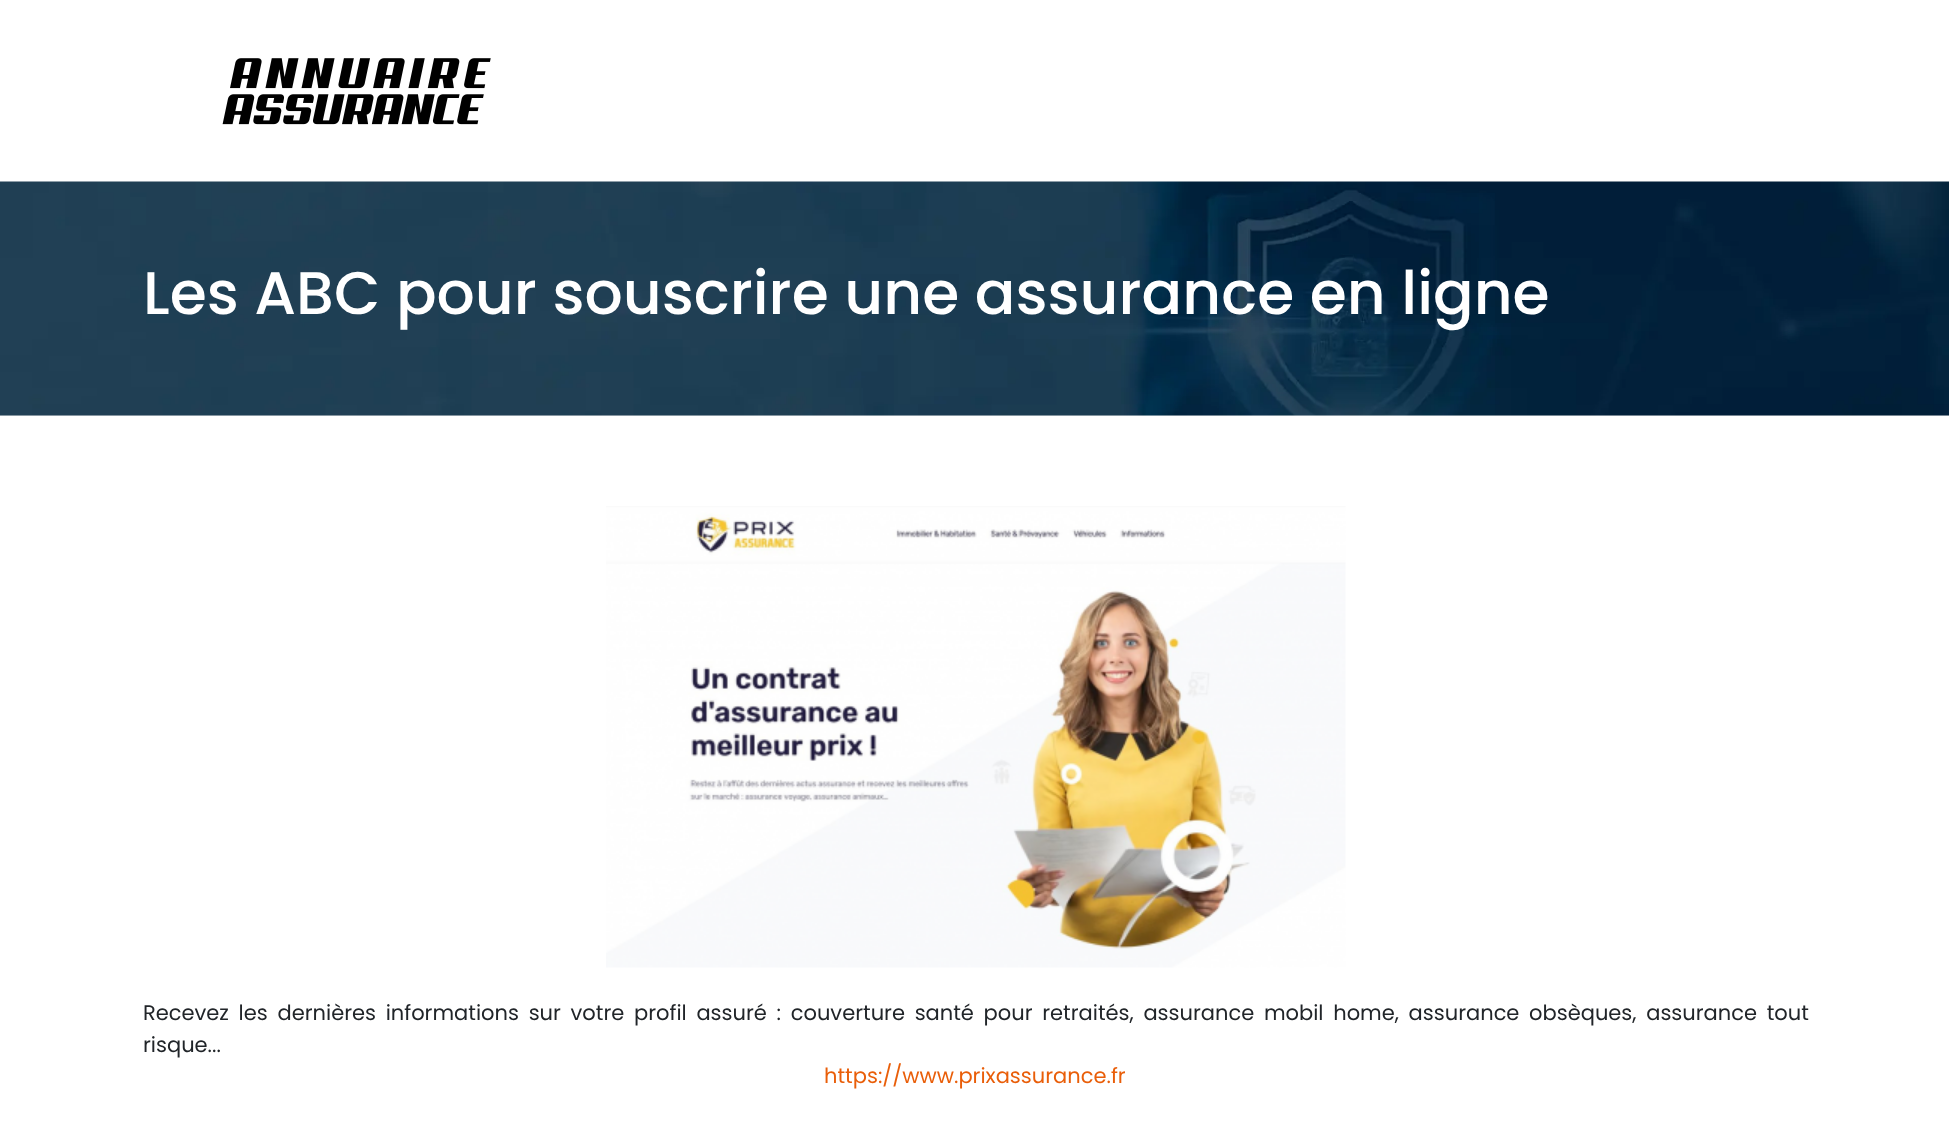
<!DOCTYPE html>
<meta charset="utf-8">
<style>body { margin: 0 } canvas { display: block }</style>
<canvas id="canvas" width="1949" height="1130"></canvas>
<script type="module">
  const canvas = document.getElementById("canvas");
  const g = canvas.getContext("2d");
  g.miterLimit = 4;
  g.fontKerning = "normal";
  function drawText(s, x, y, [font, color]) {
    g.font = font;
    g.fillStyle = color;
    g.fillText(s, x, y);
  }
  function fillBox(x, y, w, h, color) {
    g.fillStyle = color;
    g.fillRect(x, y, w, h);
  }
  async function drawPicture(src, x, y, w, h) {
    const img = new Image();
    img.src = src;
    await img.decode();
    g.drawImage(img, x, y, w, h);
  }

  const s1 = ["500 60px Poppins", "#FFFFFF"];
  const s2 = ["21px Poppins", "#212529"];
  const s3 = ["21px Poppins", "#E95E09"];

  fillBox(0, 0, 1949, 1130, "#FFFFFF");
  g.save();
  g.beginPath();
  g.moveTo(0, 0);
  g.lineTo(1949, 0);
  g.lineTo(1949, 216);
  g.lineTo(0, 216);
  g.closePath();
  g.moveTo(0, 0);
  g.lineTo(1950, 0);
  g.lineTo(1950, 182);
  g.lineTo(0, 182);
  g.closePath();
  g.clip("evenodd");
  g.fillStyle = "rgba(0, 0, 0, 0.1)";
  g.filter = "blur(10px)";
  g.beginPath();
  g.rect(0, 3, 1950, 182);
  g.fill();
  g.filter = "none";
  g.restore();
  await drawPicture("pic1.png", 222, 58, 269, 67);
  fillBox(0, 415, 1949, 1, "#EEEEEE");
  await drawPicture("pic2.png", 0, 181, 1949, 235);
  drawText("Les ABC pour souscrire une assurance en ligne", 143, 314, s1);
  await drawPicture("pic3.png", 606, 506, 740, 462);
  g.wordSpacing = "4.1px";
  drawText("Recevez les dernières informations sur votre profil assuré : couverture santé pour retraités, assurance mobil home, assurance obsèques, assurance tout", 143, 1020, s2);
  g.wordSpacing = "0px";
  drawText("risque...", 143, 1052, s2);
  drawText("https://www.prixassurance.fr", 824, 1083, s3);
</script>
